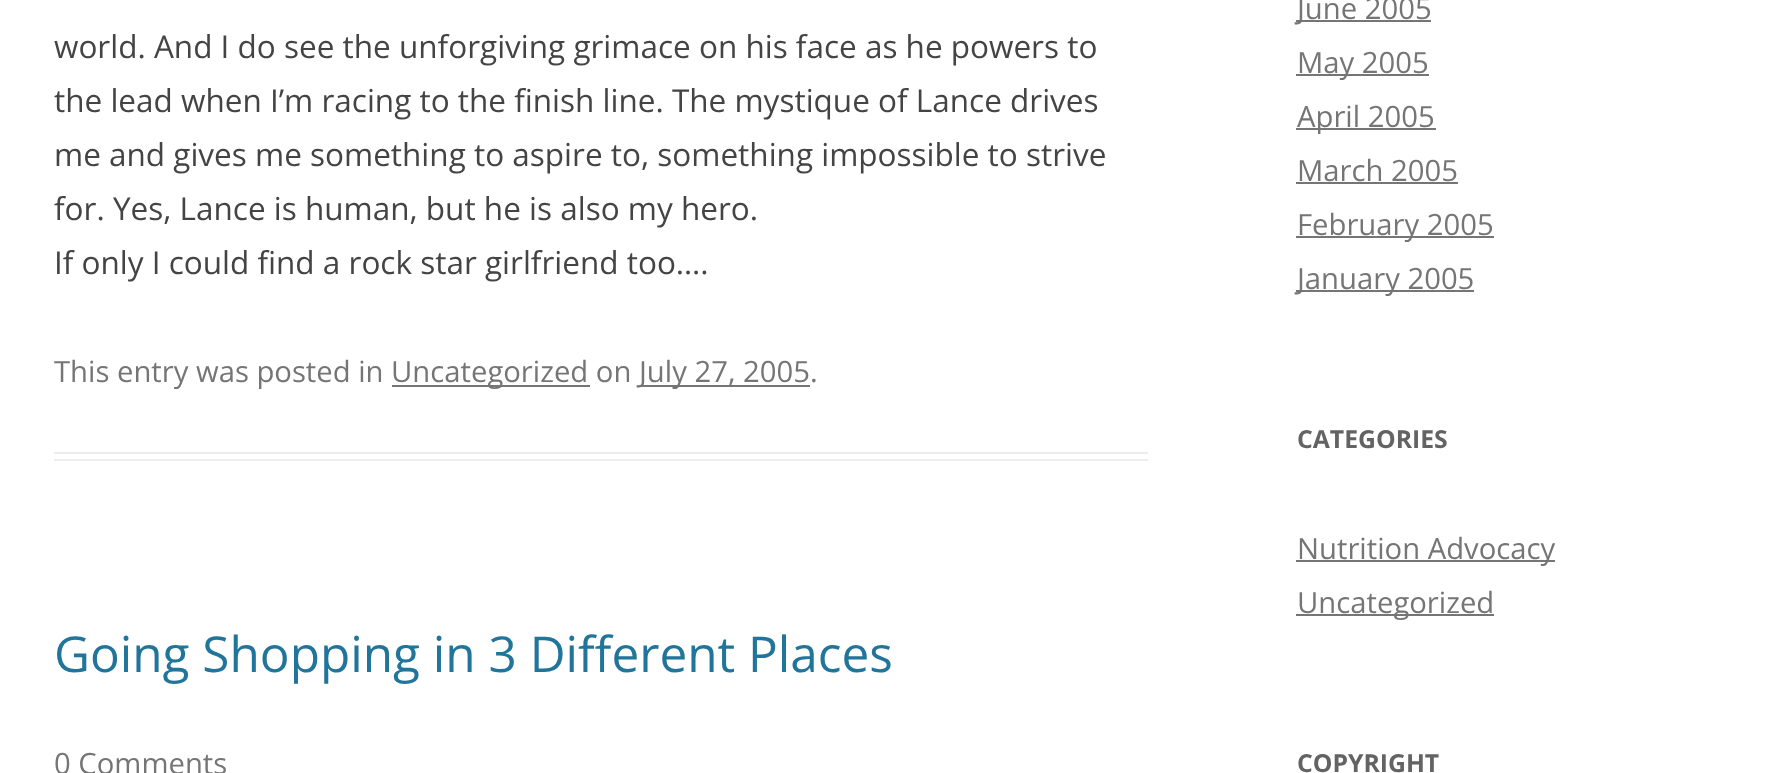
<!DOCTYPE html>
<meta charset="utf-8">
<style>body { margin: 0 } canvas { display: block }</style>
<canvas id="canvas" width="1787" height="773"></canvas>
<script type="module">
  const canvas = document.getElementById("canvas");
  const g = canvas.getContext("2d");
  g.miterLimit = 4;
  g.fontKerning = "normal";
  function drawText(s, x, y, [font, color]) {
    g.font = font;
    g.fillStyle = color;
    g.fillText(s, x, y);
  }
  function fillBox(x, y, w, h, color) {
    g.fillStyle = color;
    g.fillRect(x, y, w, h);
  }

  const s1 = ["31.5px Open Sans", "#444444"];
  const s2 = ["29.25px Open Sans", "#757575"];
  const s3 = ["49.5px Open Sans", "#21759B"];
  const s4 = ["bold 24.75px Open Sans", "#636363"];

  fillBox(0, 0, 1787, 773, "#FFFFFF");
  fillBox(54, 452, 1094, 2, "#EDEDED");
  fillBox(54, 459, 1094, 2, "#EDEDED");
  drawText("world. And I do see the unforgiving grimace on his face as he powers to", 54, 58, s1);
  drawText("the lead when I’m racing to the finish line. The mystique of Lance drives", 54, 112, s1);
  drawText("me and gives me something to aspire to, something impossible to strive", 54, 166, s1);
  drawText("for. Yes, Lance is human, but he is also my hero.", 54, 220, s1);
  drawText("If only I could find a rock star girlfriend too….", 54, 274, s1);
  drawText("This entry was posted in", 54, 382, s2);
  fillBox(392, 385, 198, 2, "#757575");
  drawText("Uncategorized on", 391, 382, s2);
  fillBox(639, 385, 171, 2, "#757575");
  drawText("July 27, 2005.", 639, 382, s2);
  drawText("Going Shopping in 3 Different Places", 54, 672, s3);
  drawText("0 Comments", 54, 774, s2);
  fillBox(1296, 20, 135, 2, "#757575");
  drawText("June 2005", 1297, 19, s2);
  fillBox(1296, 74, 133, 2, "#757575");
  drawText("May 2005", 1297, 73, s2);
  fillBox(1296, 128, 140, 2, "#757575");
  drawText("April 2005", 1297, 127, s2);
  drawText("March 2005", 1297, 181, s2);
  fillBox(1296, 182, 162, 2, "#757575");
  fillBox(1296, 236, 198, 2, "#757575");
  drawText("February 2005", 1297, 235, s2);
  fillBox(1296, 290, 178, 2, "#757575");
  drawText("January 2005", 1297, 289, s2);
  drawText("CATEGORIES", 1297, 448, s4);
  fillBox(1296, 560, 259, 2, "#757575");
  drawText("Nutrition Advocacy", 1297, 559, s2);
  fillBox(1296, 614, 198, 2, "#757575");
  drawText("Uncategorized", 1297, 613, s2);
  drawText("COPYRIGHT", 1297, 772, s4);
</script>
